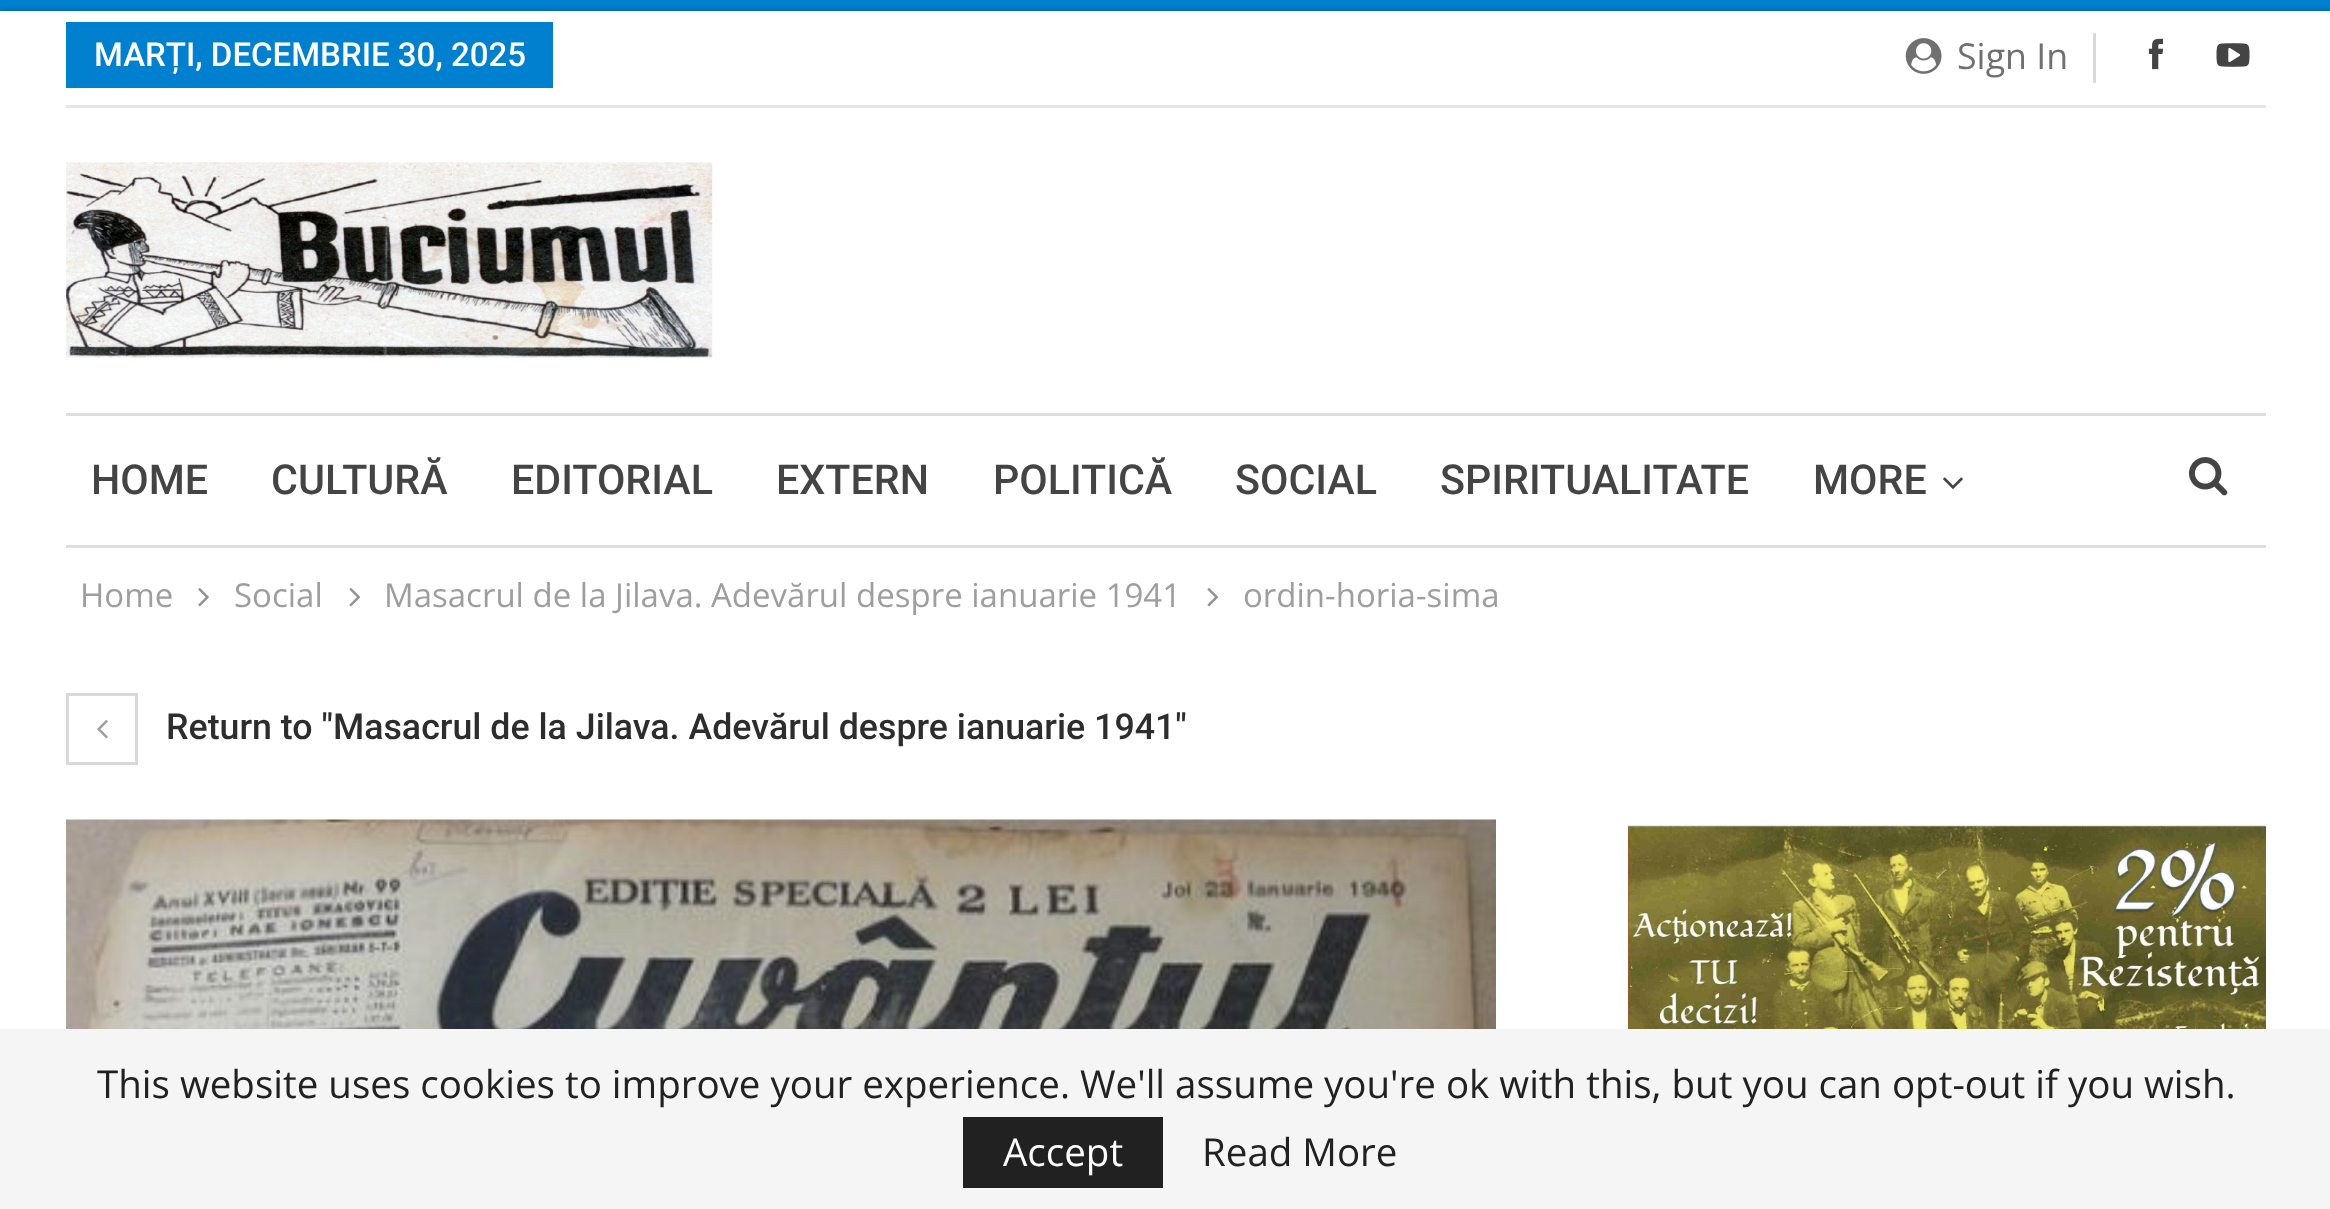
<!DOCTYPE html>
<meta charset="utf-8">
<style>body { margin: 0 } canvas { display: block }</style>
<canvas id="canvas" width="2330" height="1209"></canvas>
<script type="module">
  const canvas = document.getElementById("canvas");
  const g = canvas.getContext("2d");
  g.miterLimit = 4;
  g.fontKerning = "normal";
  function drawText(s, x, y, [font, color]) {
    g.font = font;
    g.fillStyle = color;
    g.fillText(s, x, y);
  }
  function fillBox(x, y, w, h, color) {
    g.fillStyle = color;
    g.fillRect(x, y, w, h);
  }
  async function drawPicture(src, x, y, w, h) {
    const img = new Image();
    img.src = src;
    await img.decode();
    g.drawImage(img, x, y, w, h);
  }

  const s1 = ["500 33px Roboto", "#FFFFFF"];
  const s2 = ["35.75px Open Sans", "#707070"];
  const s3 = ["500 41.25px Roboto", "#444444"];
  const s4 = ["33px Open Sans", "#9E9E9E"];
  const s5 = ["500 35.75px Roboto", "#2D2D2D"];
  const s6 = ["38.5px Open Sans", "#212121"];
  const s7 = ["38.5px Open Sans", "#FFFFFF"];

  fillBox(0, 0, 2330, 1209, "#0080CE");
  g.fillStyle = "rgba(0, 0, 0, 0.27)";
  g.filter = "blur(3px)";
  g.beginPath();
  g.rect(0, 11, 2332, 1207);
  g.fill();
  g.filter = "none";
  fillBox(0, 11, 2330, 1018, "#FFFFFF");
  fillBox(66, 105, 2200, 3, "#E6E6E6");
  fillBox(66, 22, 487, 66, "#0080CE");
  drawText("MARȚI, DECEMBRIE 30, 2025", 94, 66, s1);
  await drawPicture("pic1.png", 1905, 38, 37, 36);
  drawText("Sign In", 1957, 69, s2);
  fillBox(2093, 33, 3, 50, "#D9D9D9");
  await drawPicture("pic2.png", 2148, 38, 16, 32);
  await drawPicture("pic3.png", 2216, 43, 34, 24);
  await drawPicture("pic4.png", 66, 162, 647, 196);
  fillBox(66, 413, 2200, 3, "#DEDEDE");
  fillBox(66, 545, 2200, 3, "#DEDEDE");
  drawText("HOME", 91, 494, s3);
  drawText("CULTURĂ", 271, 494, s3);
  drawText("EDITORIAL", 511, 494, s3);
  drawText("EXTERN", 776, 494, s3);
  drawText("POLITICĂ", 993, 494, s3);
  drawText("SOCIAL", 1235, 494, s3);
  drawText("SPIRITUALITATE", 1440, 494, s3);
  drawText("MORE", 1813, 494, s3);
  await drawPicture("pic5.png", 1943, 477, 20, 12);
  await drawPicture("pic6.png", 2189, 457, 39, 39);
  drawText("Home", 80, 607, s4);
  await drawPicture("pic7.png", 198, 588, 11, 19);
  drawText("Social", 234, 607, s4);
  await drawPicture("pic8.png", 349, 588, 12, 19);
  drawText("Masacrul de la Jilava. Adevărul despre ianuarie 1941", 384, 607, s4);
  await drawPicture("pic8.png", 1207, 588, 12, 19);
  drawText("ordin-horia-sima", 1243, 607, s4);
  g.strokeStyle = "#D8D8D8";
  g.lineWidth = 3;
  g.strokeRect(67.5, 694.5, 69, 69);
  await drawPicture("pic9.png", 97, 720, 11, 19);
  drawText("Return to \"Masacrul de la Jilava. Adevărul despre ianuarie 1941\"", 166, 739, s5);
  await drawPicture("pic10.png", 66, 819, 1430, 210);
  await drawPicture("pic11.png", 1628, 825, 638, 204);
  fillBox(0, 1029, 2330, 180, "#F5F5F5");
  drawText("This website uses cookies to improve your experience. We'll assume you're ok with this, but you can opt-out if you wish.", 97, 1098, s6);
  fillBox(963, 1117, 200, 71, "#212121");
  drawText("Accept", 1003, 1166, s7);
  drawText("Read More", 1202, 1166, s6);
</script>
